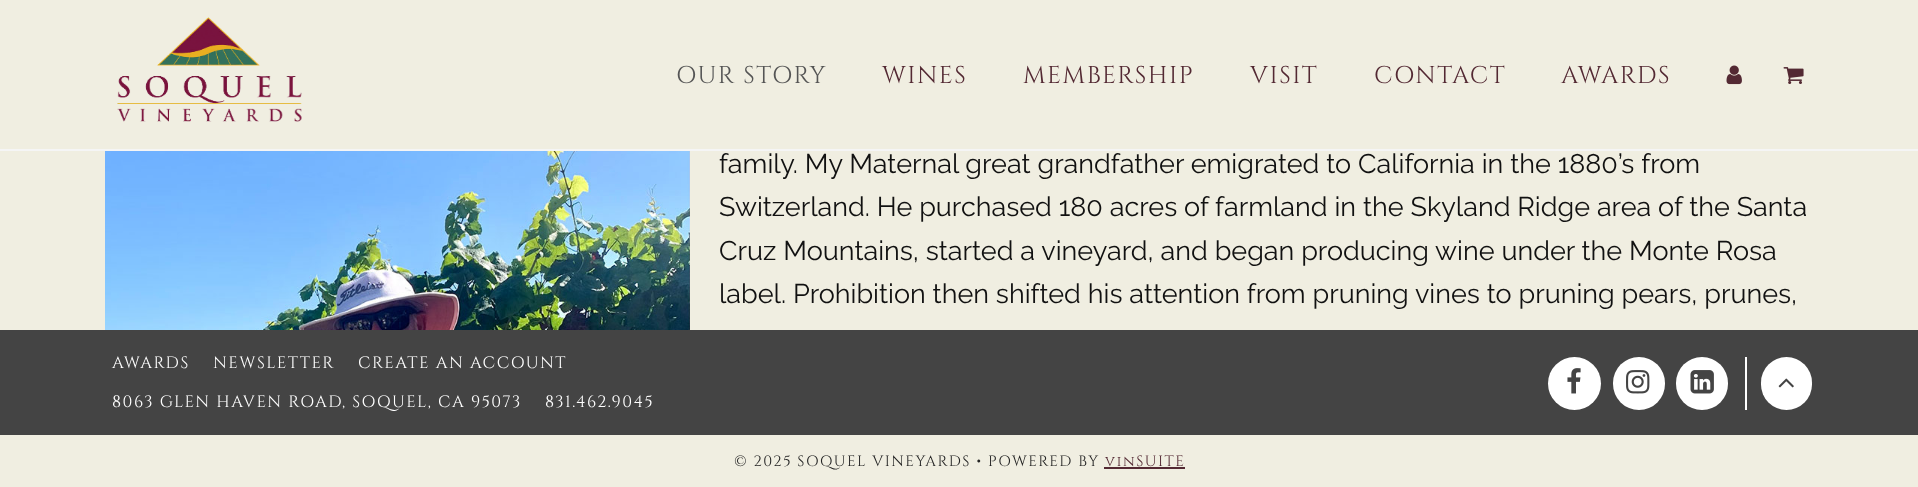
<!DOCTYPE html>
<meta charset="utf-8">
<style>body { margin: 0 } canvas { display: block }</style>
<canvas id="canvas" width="1918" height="487"></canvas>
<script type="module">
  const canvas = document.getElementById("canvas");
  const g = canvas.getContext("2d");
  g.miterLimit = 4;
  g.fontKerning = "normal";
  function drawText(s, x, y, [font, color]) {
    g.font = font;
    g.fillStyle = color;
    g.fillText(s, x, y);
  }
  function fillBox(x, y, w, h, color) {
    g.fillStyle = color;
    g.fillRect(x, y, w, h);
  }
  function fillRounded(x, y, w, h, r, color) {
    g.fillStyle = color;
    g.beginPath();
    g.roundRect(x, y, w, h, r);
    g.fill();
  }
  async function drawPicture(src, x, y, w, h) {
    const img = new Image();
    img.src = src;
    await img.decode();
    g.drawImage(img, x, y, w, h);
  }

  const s1 = ["24.25px Cinzel", "#555555"];
  const s2 = ["24.25px Cinzel", "#532933"];
  const s3 = ["100 27px Raleway", "#111111"];
  const s4 = ["16.5px Cinzel", "#FFFFFF"];
  const s5 = ["15px Cinzel", "#242424"];
  const s6 = ["15px Cinzel", "#532933"];

  fillBox(0, 0, 1918, 487, "#F0EEE1");
  fillBox(0, 149, 1918, 2, "#F5F5F5");
  await drawPicture("pic1.png", 117, 17, 185, 105);
  g.letterSpacing = "1.5px";
  drawText("OUR STORY", 676, 83, s1);
  drawText("WINES", 882, 83, s2);
  drawText("MEMBERSHIP", 1023, 83, s2);
  drawText("VISIT", 1250, 83, s2);
  drawText("CONTACT", 1374, 83, s2);
  drawText("AWARDS", 1561, 83, s2);
  await drawPicture("pic2.png", 1726, 65, 16, 20);
  await drawPicture("pic3.png", 1783, 67, 21, 17);
  await drawPicture("pic4.png", 105, 151, 585, 179);
  g.letterSpacing = "0px";
  drawText("family. My Maternal great grandfather emigrated to California in the 1880’s from", 719, 173, s3);
  drawText("Switzerland. He purchased 180 acres of farmland in the Skyland Ridge area of the Santa", 719, 216, s3);
  drawText("Cruz Mountains, started a vineyard, and began producing wine under the Monte Rosa", 719, 260, s3);
  drawText("label. Prohibition then shifted his attention from pruning vines to pruning pears, prunes,", 719, 303, s3);
  fillBox(0, 330, 1918, 105, "#444444");
  g.letterSpacing = "1.5px";
  drawText("AWARDS", 112, 368, s4);
  drawText("NEWSLETTER", 213, 368, s4);
  drawText("CREATE AN ACCOUNT", 358, 368, s4);
  drawText("8063 GLEN HAVEN ROAD, SOQUEL, CA 95073", 112, 407, s4);
  drawText("831.462.9045", 545, 407, s4);
  g.beginPath();
  g.arc(1574.5, 383.5, 26.5, 0, Math.PI * 2);
  g.fill();
  await drawPicture("pic5.png", 1567, 368, 14, 26);
  fillRounded(1613, 357, 52, 53, 26, "#FFFFFF");
  await drawPicture("pic6.png", 1626, 370, 24, 24);
  fillRounded(1676, 357, 52, 53, 26, "#FFFFFF");
  await drawPicture("pic7.png", 1690, 370, 24, 24);
  fillBox(1745, 357, 2, 53, "#FFFFFF");
  fillRounded(1761, 357, 51, 53, 25.5, "#FFFFFF");
  await drawPicture("pic8.png", 1778, 378, 16, 10);
  drawText("© 2025 SOQUEL VINEYARDS • POWERED BY", 734, 466, s5);
  drawText("vinSUITE", 1105, 466, s6);
  fillBox(1104, 467, 81, 2, "#532933");
</script>
